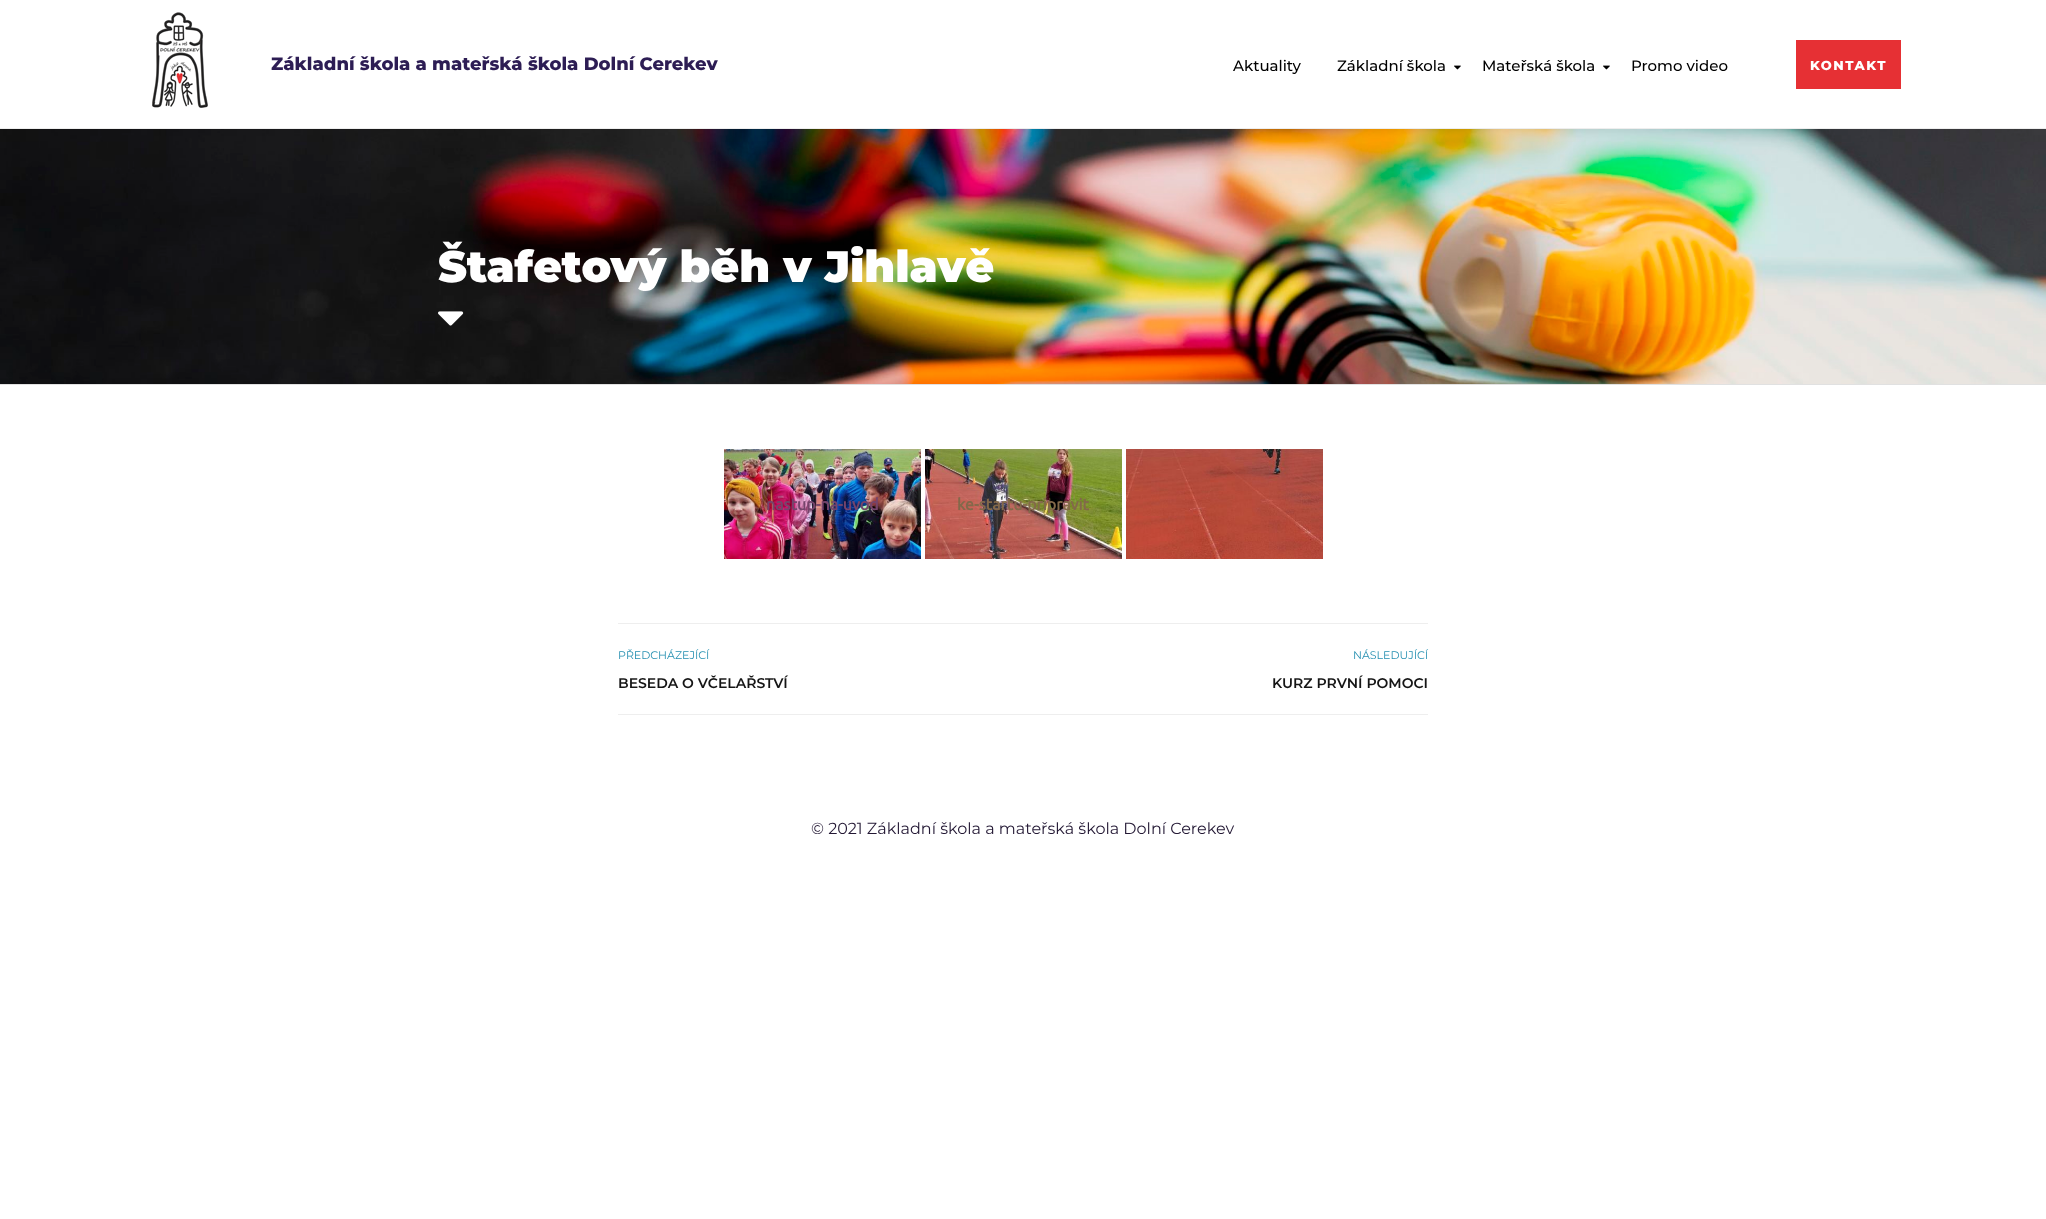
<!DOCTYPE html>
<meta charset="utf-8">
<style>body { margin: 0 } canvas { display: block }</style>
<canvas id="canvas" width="2046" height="1219"></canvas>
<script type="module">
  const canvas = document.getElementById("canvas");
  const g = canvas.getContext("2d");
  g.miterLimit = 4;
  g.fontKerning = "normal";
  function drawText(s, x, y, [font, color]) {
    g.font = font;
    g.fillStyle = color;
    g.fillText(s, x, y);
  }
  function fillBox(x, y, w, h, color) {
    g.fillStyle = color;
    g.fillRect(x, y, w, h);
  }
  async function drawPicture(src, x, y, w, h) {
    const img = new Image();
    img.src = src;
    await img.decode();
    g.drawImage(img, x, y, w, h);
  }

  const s1 = ["800 18px Montserrat", "#2D1D54"];
  const s2 = ["500 15px Montserrat", "#000000"];
  const s3 = ["800 13px Montserrat", "#FFFFFF"];
  const s4 = ["900 44px Montserrat", "#FFFFFF"];
  const s5 = ["bold 16px Ubuntu", "#75446B"];
  const s6 = ["bold 16px Ubuntu", "#83694A"];
  const s7 = ["11px Montserrat", "#2690B1"];
  const s8 = ["600 14px Montserrat", "#151515"];
  const s9 = ["16px Montserrat", "#231834"];

  fillBox(0, 0, 2046, 1219, "#FFFFFF");
  fillBox(0, 128, 2046, 1, "#EEEEEE");
  await drawPicture("pic1.png", 152, 12, 56, 96);
  drawText("Základní škola a mateřská škola Dolní Cerekev", 271, 70, s1);
  drawText("Aktuality", 1233, 71, s2);
  drawText("Základní škola", 1337, 71, s2);
  await drawPicture("pic2.png", 1454, 65, 7, 5);
  drawText("Mateřská škola", 1482, 71, s2);
  await drawPicture("pic2.png", 1603, 65, 7, 5);
  drawText("Promo video", 1631, 71, s2);
  fillBox(1796, 40, 105, 49, "#E63034");
  g.letterSpacing = "1.5px";
  drawText("KONTAKT", 1810, 70, s3);
  await drawPicture("pic3.png", 0, 129, 2046, 255);
  fillBox(0, 384, 2046, 1, "#E1E1E1");
  g.letterSpacing = "0px";
  drawText("Štafetový běh v Jihlavě", 438, 282, s4);
  await drawPicture("pic4.png", 438, 311, 26, 15);
  await drawPicture("pic5.png", 724, 449, 197, 110);
  drawText("nastup-na-uvod", 766, 510, s5);
  await drawPicture("pic6.png", 925, 449, 197, 110);
  drawText("ke-startu-pripravit", 957, 510, s6);
  await drawPicture("pic7.png", 1126, 449, 197, 110);
  fillBox(618, 623, 810, 1, "#EEEEEE");
  fillBox(618, 714, 810, 1, "#EEEEEE");
  drawText("PŘEDCHÁZEJÍCÍ", 618, 659, s7);
  drawText("BESEDA O VČELAŘSTVÍ", 618, 688, s8);
  drawText("NÁSLEDUJÍCÍ", 1353, 659, s7);
  drawText("KURZ PRVNÍ POMOCI", 1272, 688, s8);
  drawText("© 2021 Základní škola a mateřská škola Dolní Cerekev", 811, 834, s9);
</script>
